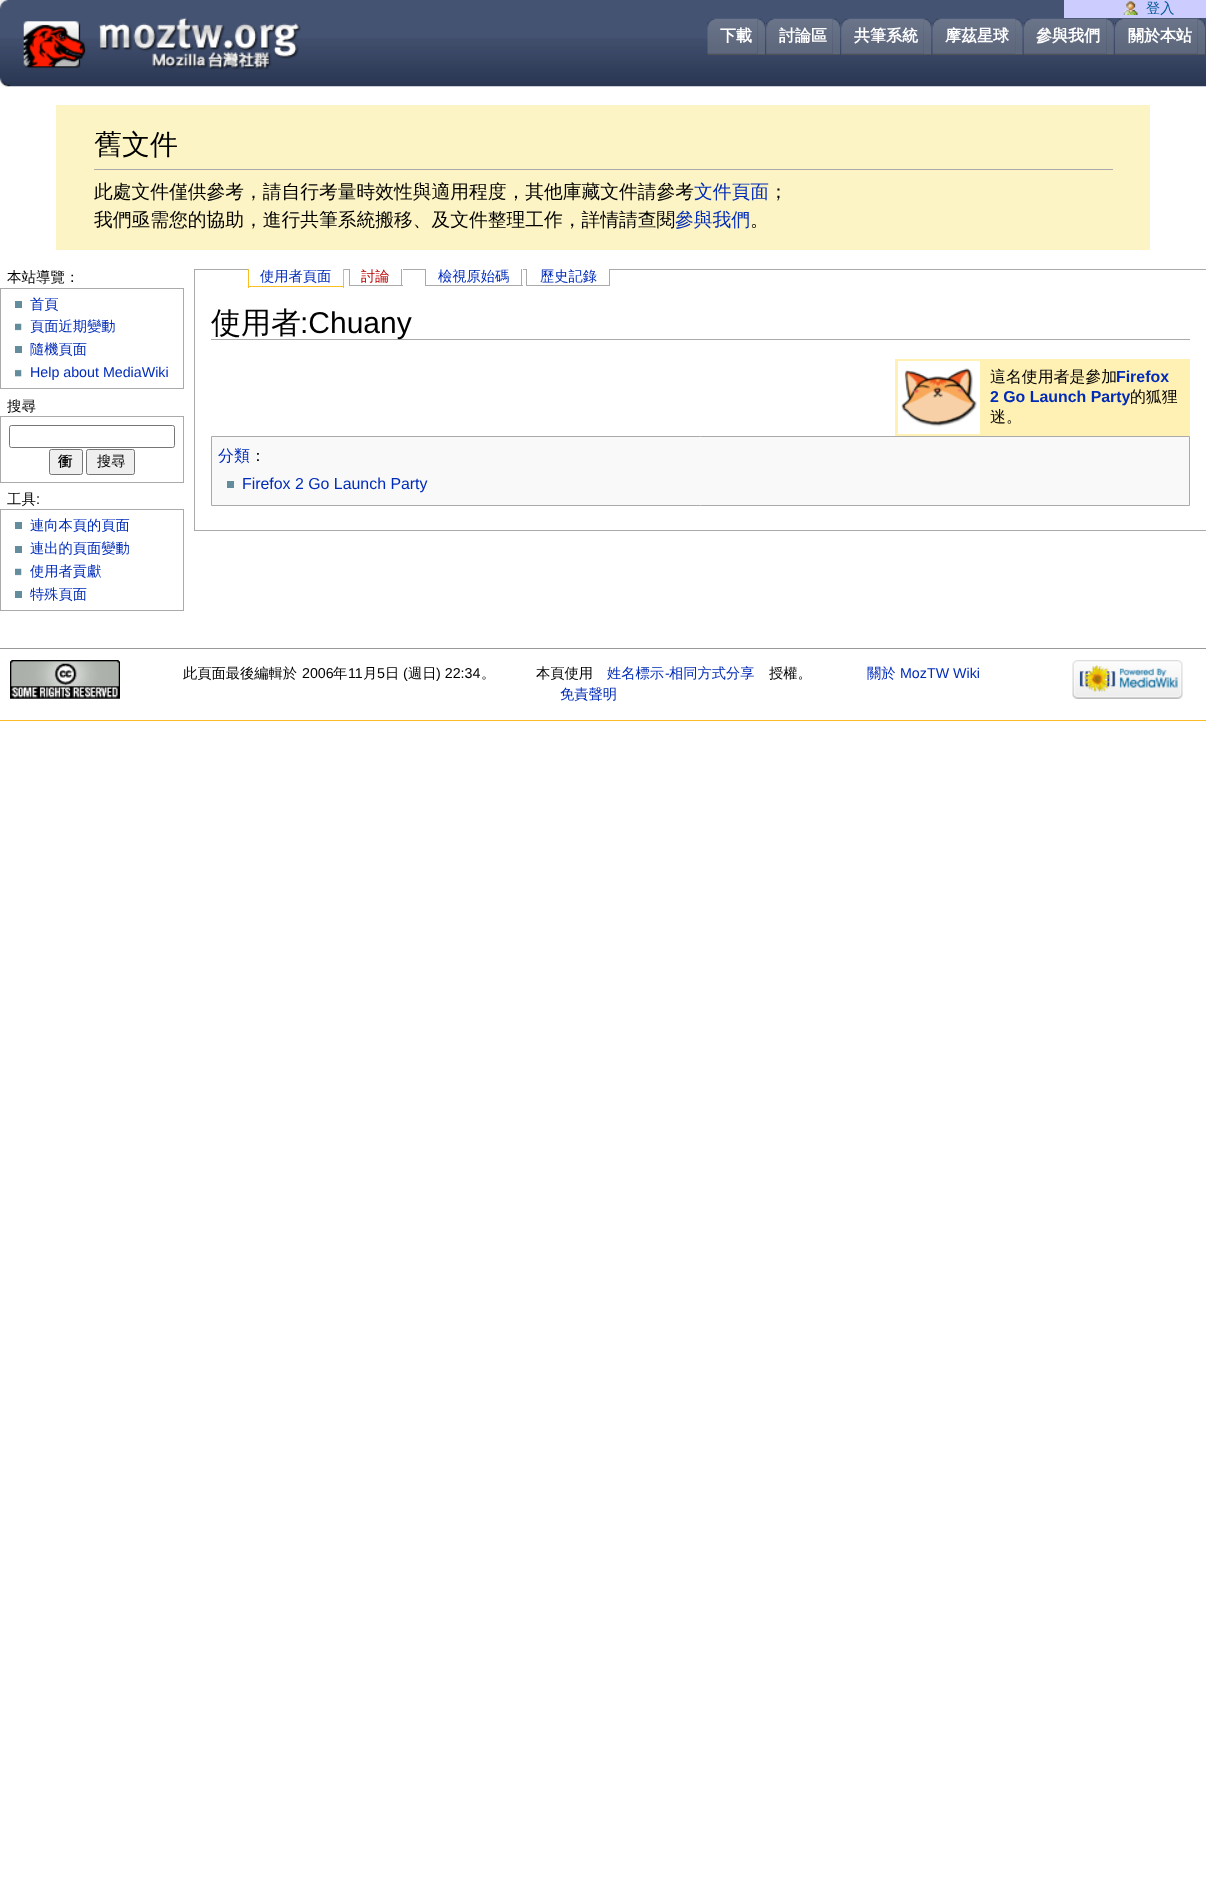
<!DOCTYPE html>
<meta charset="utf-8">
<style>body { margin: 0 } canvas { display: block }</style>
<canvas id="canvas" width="1206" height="1900"></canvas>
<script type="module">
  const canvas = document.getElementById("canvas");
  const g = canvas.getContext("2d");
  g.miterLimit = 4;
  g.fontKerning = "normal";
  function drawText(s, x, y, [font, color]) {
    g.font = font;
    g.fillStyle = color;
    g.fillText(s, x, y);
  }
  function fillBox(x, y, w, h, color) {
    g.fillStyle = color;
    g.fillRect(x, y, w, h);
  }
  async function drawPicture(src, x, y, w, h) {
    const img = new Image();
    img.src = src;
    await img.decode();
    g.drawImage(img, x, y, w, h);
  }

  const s1 = ["500 14.25px WenQuanYi Zen Hei", "#005896"];
  const s2 = ["500 14.5px WenQuanYi Zen Hei", "#000000"];
  const s3 = ["500 14.25px WenQuanYi Zen Hei", "#002BB8"];
  const s4 = ["14.25px Liberation Sans", "#002BB8"];
  const s5 = ["bold 14.25px WenQuanYi Zen Hei", "#000000"];
  const s6 = ["500 14.25px WenQuanYi Zen Hei", "#000000"];
  const s7 = ["14.5px Liberation Sans", "#000000"];
  const s8 = ["500 14.25px WenQuanYi Zen Hei", "#BA0000"];
  const s9 = ["500 30px WenQuanYi Zen Hei", "#000000"];
  const s10 = ["30px Liberation Sans", "#000000"];
  const s11 = ["500 15.9px WenQuanYi Zen Hei", "#000000"];
  const s12 = ["bold 15.9px Liberation Sans", "#002BB8"];
  const s13 = ["500 15.9px WenQuanYi Zen Hei", "#002BB8"];
  const s14 = ["15.9px Liberation Sans", "#002BB8"];
  const s15 = ["14.25px Liberation Sans", "#000000"];
  const s16 = ["bold 16px WenQuanYi Zen Hei", "#FFFFFF"];
  const s17 = ["500 28px WenQuanYi Zen Hei", "#000000"];
  const s18 = ["500 18.75px WenQuanYi Zen Hei", "#000000"];
  const s19 = ["500 18.75px WenQuanYi Zen Hei", "#002BB8"];

  fillBox(0, 0, 1206, 1900, "#FFFFFF");
  fillBox(0, 0, 1206, 38, "#455372");
  fillBox(1064, 0, 142, 18, "#CCCCFF");
  await drawPicture("pic1.png", 1123, 1, 15, 14);
  drawText("登入", 1146, 13, s1);
  drawText("本站導覽：", 7, 282, s2);
  g.strokeStyle = "#AAAAAA";
  g.strokeRect(0.5, 288.5, 183, 100);
  fillBox(15, 301, 7, 7, "#638C9C");
  drawText("首頁", 30, 309, s3);
  await drawPicture("pic2.png", 15, 323, 7, 8);
  drawText("頁面近期變動", 30, 331, s3);
  fillBox(15, 346, 7, 7, "#638C9C");
  drawText("隨機頁面", 30, 354, s3);
  await drawPicture("pic3.png", 15, 369, 7, 8);
  drawText("Help about MediaWiki", 30, 377, s4);
  drawText("搜尋", 7, 411, s2);
  g.strokeRect(0.5, 416.5, 183, 66);
  g.beginPath();
  g.roundRect(9.5, 425.5, 165, 22, 2);
  g.strokeStyle = "#767676";
  g.stroke();
  g.fillStyle = "#EFEFEF";
  g.beginPath();
  g.roundRect(49.5, 449.5, 33, 25, 2);
  g.fill();
  g.stroke();
  drawText("衝", 58, 466, s5);
  g.fillStyle = "#EFEFEF";
  g.beginPath();
  g.roundRect(86.5, 449.5, 48, 25, 2);
  g.fill();
  g.stroke();
  drawText("搜尋", 97, 466, s6);
  drawText("工具", 7, 504, s2);
  drawText(":", 36, 504, s7);
  g.strokeStyle = "#AAAAAA";
  g.strokeRect(0.5, 509.5, 183, 101);
  fillBox(15, 522, 7, 7, "#638C9C");
  drawText("連向本頁的頁面", 30, 530, s3);
  fillBox(15, 546, 7, 7, "#638C9C");
  drawText("連出的頁面變動", 30, 553, s3);
  await drawPicture("pic2.png", 15, 568, 7, 8);
  drawText("使用者貢獻", 30, 576, s3);
  fillBox(15, 591, 7, 7, "#638C9C");
  drawText("特殊頁面", 30, 599, s3);
  fillBox(194, 269, 1012, 1, "#AAAAAA");
  fillBox(194, 530, 1012, 1, "#AAAAAA");
  fillBox(194, 269, 1, 262, "#AAAAAA");
  fillBox(249, 269, 94, 1, "#FFFFFF");
  drawText("使用者頁面", 260, 281, s3);
  fillBox(343, 269, 1, 19, "#FABD23");
  fillBox(248, 286, 96, 1, "#FABD23");
  fillBox(248, 269, 1, 19, "#FABD23");
  fillBox(350, 269, 53, 1, "#FFFFFF");
  drawText("討論", 361, 281, s8);
  fillBox(401, 269, 1, 17, "#AAAAAA");
  fillBox(349, 285, 54, 1, "#AAAAAA");
  fillBox(349, 269, 1, 17, "#AAAAAA");
  fillBox(426, 269, 97, 1, "#FFFFFF");
  drawText("檢視原始碼", 438, 281, s3);
  fillBox(521, 269, 1, 17, "#AAAAAA");
  fillBox(425, 285, 98, 1, "#AAAAAA");
  fillBox(425, 269, 1, 17, "#AAAAAA");
  fillBox(527, 269, 82, 1, "#FFFFFF");
  drawText("歷史記錄", 540, 281, s3);
  fillBox(609, 269, 1, 17, "#AAAAAA");
  fillBox(526, 285, 84, 1, "#AAAAAA");
  fillBox(526, 269, 1, 17, "#AAAAAA");
  fillBox(211, 339, 979, 1, "#AAAAAA");
  drawText("使用者", 211, 333, s9);
  drawText(":Chuany", 300, 333, s10);
  fillBox(895, 359, 295, 77, "#FFF0B4");
  fillBox(898, 361, 82, 73, "#FFFFFF");
  await drawPicture("pic4.png", 901, 368, 76, 59);
  drawText("這名使用者是參加", 990, 382, s11);
  drawText("Firefox", 1116, 382, s12);
  drawText("2 Go Launch Party", 990, 402, s12);
  drawText("的狐狸", 1130, 402, s11);
  drawText("迷。", 990, 422, s11);
  g.fillStyle = "#F9F9F9";
  g.beginPath();
  g.rect(211.5, 436.5, 978, 69);
  g.fill();
  g.stroke();
  drawText("分類", 218, 461, s13);
  drawText("：", 250, 461, s11);
  fillBox(227, 481, 7, 7, "#638C9C");
  drawText("Firefox 2 Go Launch Party", 242, 489, s14);
  fillBox(0, 648, 1206, 1, "#999999");
  fillBox(0, 720, 1206, 1, "#FABD23");
  await drawPicture("pic5.png", 10, 660, 110, 39);
  drawText("此頁面最後編輯於", 183, 678, s6);
  drawText("2006", 302, 678, s15);
  drawText("年", 333, 678, s6);
  drawText("11", 348, 678, s15);
  drawText("月", 363, 678, s6);
  drawText("5", 377, 678, s15);
  drawText("日", 385, 678, s6);
  drawText("(", 403, 678, s15);
  drawText("週日", 408, 678, s6);
  drawText(") 22:34", 436, 678, s15);
  drawText("本頁使用", 536, 678, s6);
  drawText("姓名標示", 607, 678, s3);
  drawText("-", 665, 678, s4);
  drawText("相同方式分享", 669, 678, s3);
  drawText("授權。", 769, 678, s6);
  drawText("關於", 867, 678, s3);
  drawText("MozTW Wiki", 900, 678, s4);
  drawText("。", 481, 678, s6);
  drawText("免責聲明", 560, 699, s3);
  await drawPicture("pic6.png", 1072, 660, 111, 39);
  await drawPicture("pic7.png", 0, 38, 1206, 49);
  await drawPicture("pic8.png", 0, 0, 8, 9);
  await drawPicture("pic9.png", 23, 17, 278, 53);
  await drawPicture("pic10.png", 757, 18, 8, 36);
  fillBox(708, 54, 57, 1, "#515358");
  await drawPicture("pic11.png", 707, 18, 51, 36);
  drawText("下載", 720, 41, s16);
  await drawPicture("pic10.png", 832, 18, 8, 36);
  fillBox(766, 54, 74, 1, "#515358");
  await drawPicture("pic12.png", 766, 18, 67, 36);
  drawText("討論區", 779, 41, s16);
  await drawPicture("pic13.png", 923, 18, 9, 37);
  fillBox(841, 54, 90, 1, "#515358");
  await drawPicture("pic14.png", 841, 18, 83, 36);
  drawText("共筆系統", 854, 41, s16);
  await drawPicture("pic15.png", 1015, 18, 8, 36);
  fillBox(933, 54, 90, 1, "#515358");
  await drawPicture("pic16.png", 932, 18, 83, 36);
  drawText("摩茲星球", 945, 41, s16);
  await drawPicture("pic17.png", 1106, 18, 8, 36);
  fillBox(1024, 54, 90, 1, "#515358");
  await drawPicture("pic18.png", 1023, 18, 84, 36);
  drawText("參與我們", 1036, 41, s16);
  await drawPicture("pic19.png", 1197, 18, 8, 36);
  fillBox(1115, 54, 90, 1, "#515358");
  await drawPicture("pic20.png", 1115, 18, 83, 36);
  drawText("關於本站", 1128, 41, s16);
  fillBox(56, 105, 1094, 145, "#FCF4C4");
  fillBox(94, 169, 1019, 1, "#AAAAAA");
  drawText("舊文件", 94, 154, s17);
  drawText("此處文件僅供參考，請自行考量時效性與適用程度，其他庫藏文件請參考", 94, 198, s18);
  drawText("文件頁面", 694, 198, s19);
  drawText("；", 769, 198, s18);
  drawText("我們亟需您的協助，進行共筆系統搬移、及文件整理工作，詳情請查閱", 94, 226, s18);
  drawText("參與我們", 675, 226, s19);
  drawText("。", 750, 226, s18);
</script>
